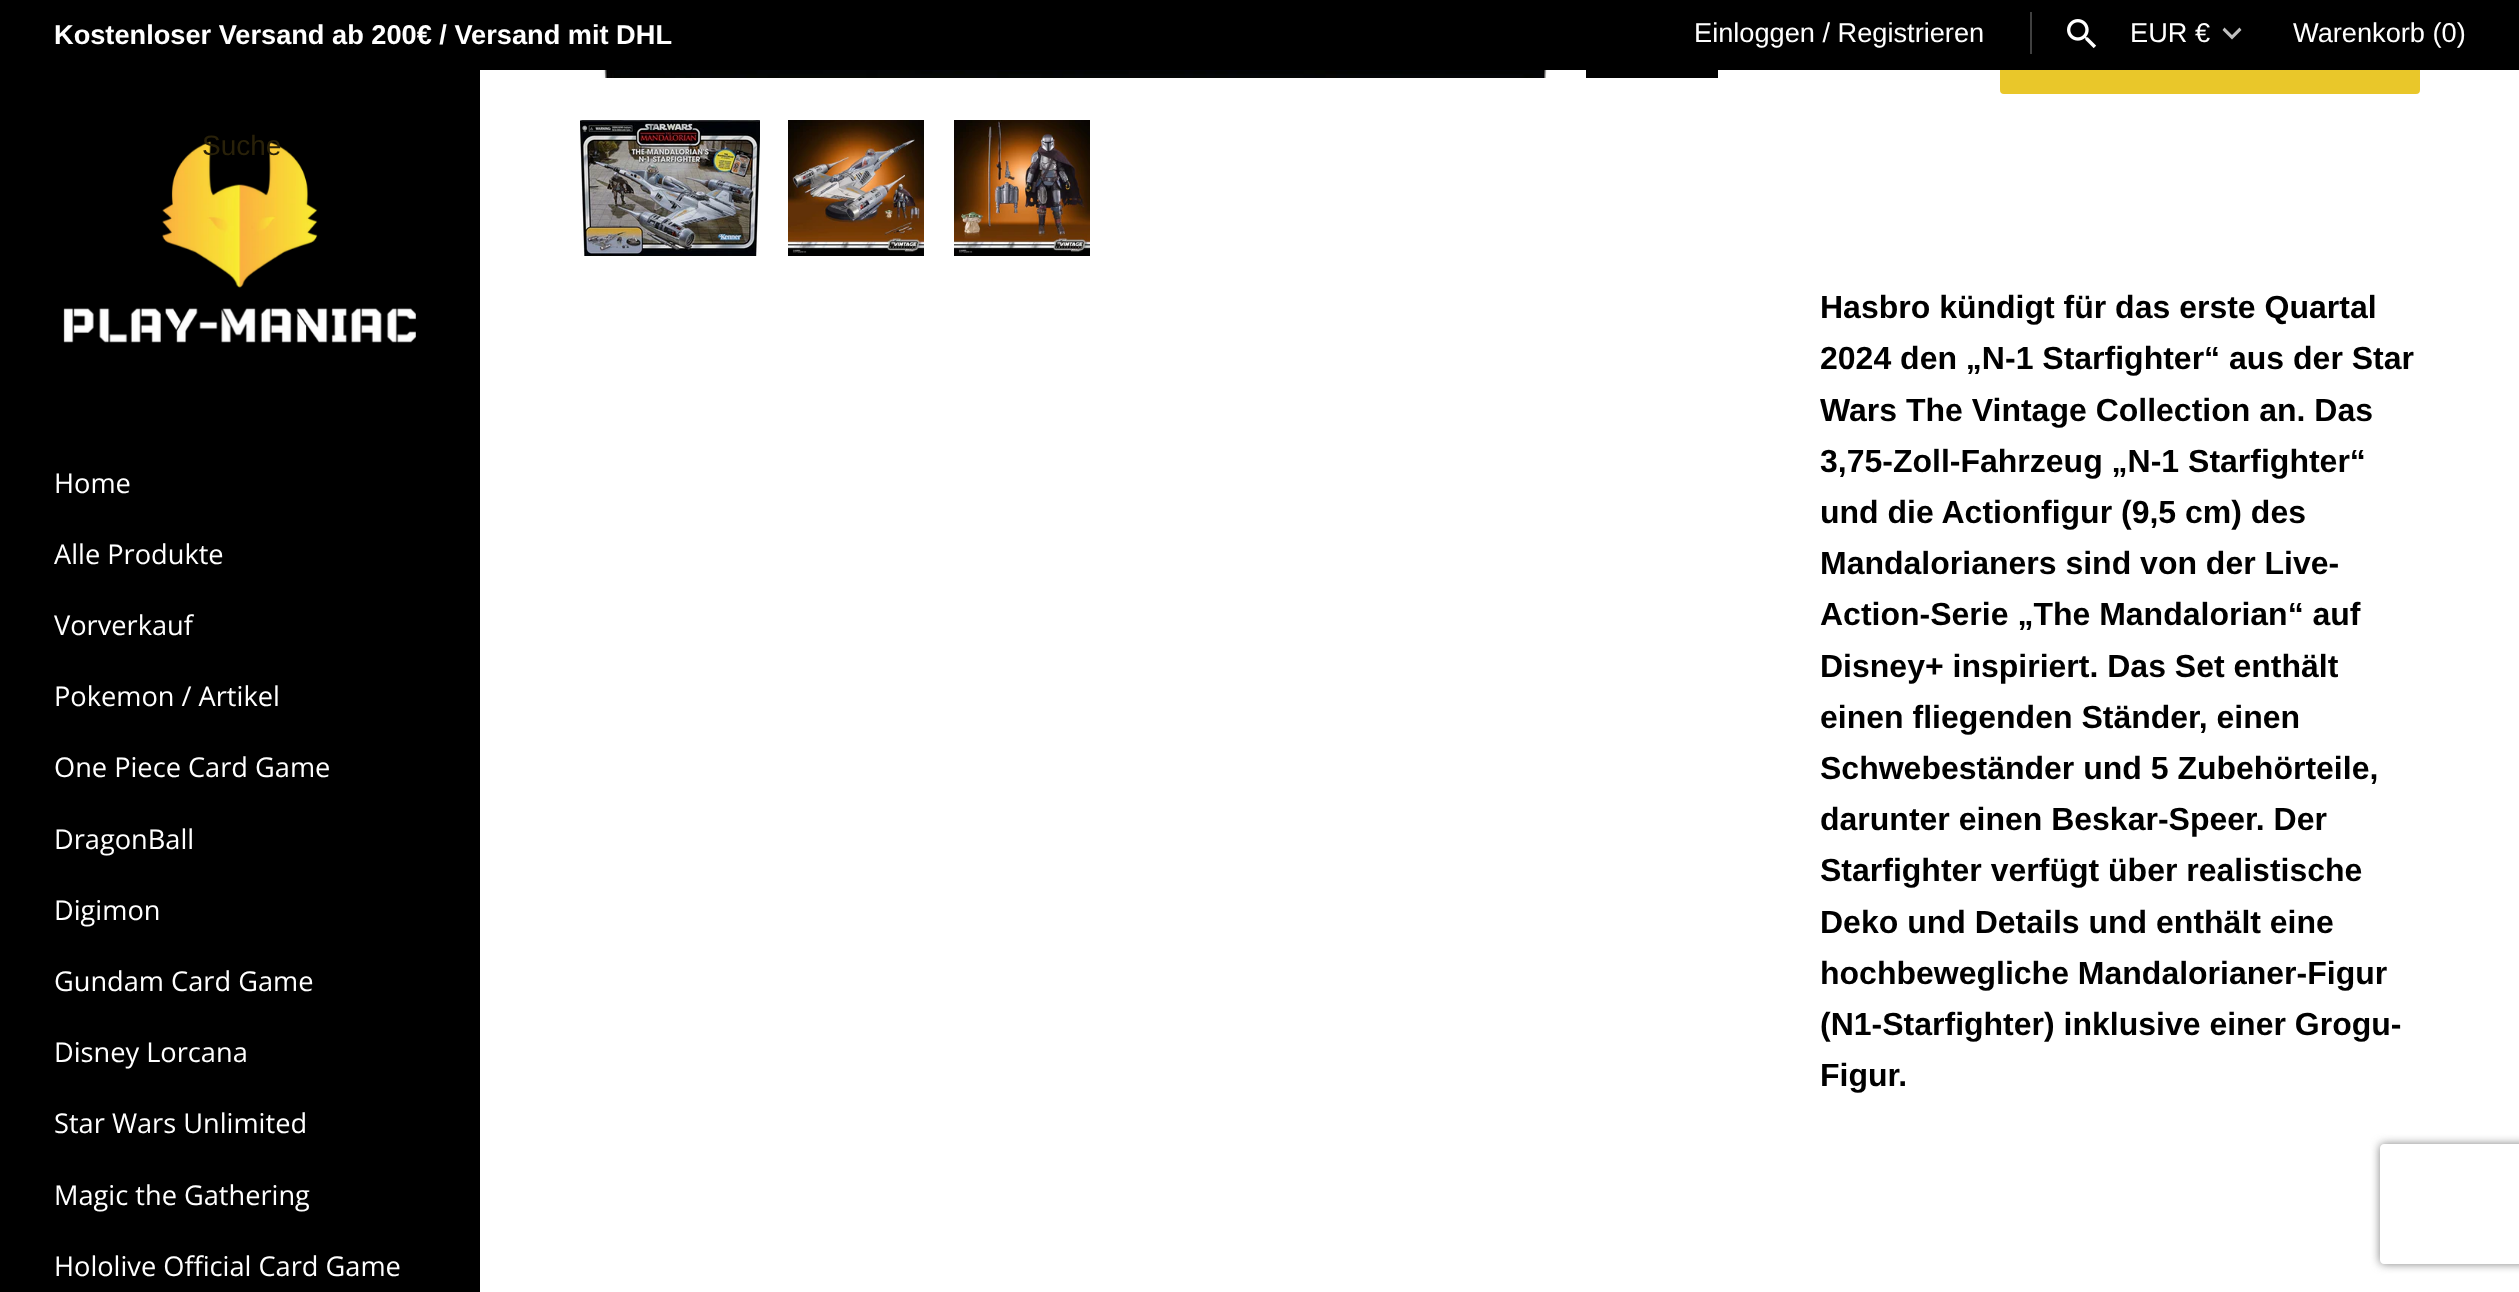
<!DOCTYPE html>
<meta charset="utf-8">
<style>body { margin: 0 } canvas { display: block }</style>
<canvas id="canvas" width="2519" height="1292"></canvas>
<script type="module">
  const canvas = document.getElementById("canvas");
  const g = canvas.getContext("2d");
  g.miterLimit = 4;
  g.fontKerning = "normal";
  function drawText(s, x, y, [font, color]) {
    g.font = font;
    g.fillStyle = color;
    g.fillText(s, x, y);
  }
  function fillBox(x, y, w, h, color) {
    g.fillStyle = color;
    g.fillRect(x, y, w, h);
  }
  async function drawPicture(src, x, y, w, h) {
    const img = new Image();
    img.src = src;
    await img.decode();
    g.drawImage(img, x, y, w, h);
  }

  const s1 = ["bold 27.2px Liberation Sans", "#FFFFFF"];
  const s2 = ["27.2px Liberation Sans", "#FFFFFF"];
  const s3 = ["28px Liberation Sans", "#292109"];
  const s4 = ["27.2px Open Sans", "#FFFFFF"];
  const s5 = ["bold 32px Liberation Sans", "#000000"];

  fillBox(0, 0, 2519, 1292, "#FFFFFF");
  g.fillStyle = "#E9C72A";
  g.beginPath();
  g.roundRect(2001, -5, 418, 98, 3);
  g.fill();
  g.strokeStyle = "#E9C72A";
  g.lineWidth = 2;
  g.stroke();
  fillBox(0, 0, 2519, 70, "#000000");
  drawText("Kostenloser Versand ab 200€ / Versand mit DHL", 54, 44, s1);
  drawText("Einloggen / Registrieren", 1694, 42, s2);
  fillBox(2030, 12, 2, 42, "#404040");
  await drawPicture("pic1.png", 2067, 19, 30, 30);
  drawText("EUR €", 2130, 42, s2);
  g.fillStyle = "#BFBFBF";
  g.beginPath();
  g.moveTo(2224.5, 27.5);
  g.lineTo(2232, 35);
  g.lineTo(2239.5, 27.5);
  g.lineTo(2241.5, 30);
  g.lineTo(2232, 39.5);
  g.lineTo(2222.5, 30);
  g.closePath();
  g.fill();
  drawText("Warenkorb (0)", 2293, 42, s2);
  fillBox(0, 70, 480, 1222, "#000000");
  await drawPicture("pic2.png", 63, 141, 353, 202);
  drawText("Suche", 202, 155, s3);
  drawText("Home", 54, 493, s4);
  drawText("Alle Produkte", 54, 564, s4);
  drawText("Vorverkauf", 54, 635, s4);
  drawText("Pokemon / Artikel", 54, 706, s4);
  drawText("One Piece Card Game", 54, 777, s4);
  drawText("DragonBall", 54, 849, s4);
  drawText("Digimon", 54, 920, s4);
  drawText("Gundam Card Game", 54, 991, s4);
  drawText("Disney Lorcana", 54, 1062, s4);
  drawText("Star Wars Unlimited", 54, 1133, s4);
  drawText("Magic the Gathering", 54, 1205, s4);
  drawText("Hololive Official Card Game", 54, 1276, s4);
  await drawPicture("pic3.png", 600, 70, 950, 8);
  await drawPicture("pic4.png", 1586, 70, 132, 8);
  await drawPicture("pic5.png", 580, 120, 180, 136);
  await drawPicture("pic6.png", 788, 120, 136, 136);
  await drawPicture("pic7.png", 954, 120, 136, 136);
  drawText("Hasbro kündigt für das erste Quartal", 1820, 318, s5);
  drawText("2024 den „N-1 Starfighter“ aus der Star", 1820, 369, s5);
  drawText("Wars The Vintage Collection an. Das", 1820, 421, s5);
  drawText("3,75-Zoll-Fahrzeug „N-1 Starfighter“", 1820, 472, s5);
  drawText("und die Actionfigur (9,5 cm) des", 1820, 523, s5);
  drawText("Mandalorianers sind von der Live-", 1820, 574, s5);
  drawText("Action-Serie „The Mandalorian“ auf", 1820, 625, s5);
  drawText("Disney+ inspiriert. Das Set enthält", 1820, 677, s5);
  drawText("einen fliegenden Ständer, einen", 1820, 728, s5);
  drawText("Schwebeständer und 5 Zubehörteile,", 1820, 779, s5);
  drawText("darunter einen Beskar-Speer. Der", 1820, 830, s5);
  drawText("Starfighter verfügt über realistische", 1820, 881, s5);
  drawText("Deko und Details und enthält eine", 1820, 933, s5);
  drawText("hochbewegliche Mandalorianer-Figur", 1820, 984, s5);
  drawText("(N1-Starfighter) inklusive einer Grogu-", 1820, 1035, s5);
  drawText("Figur.", 1820, 1086, s5);
  g.save();
  g.beginPath();
  g.moveTo(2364, 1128);
  g.lineTo(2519, 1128);
  g.lineTo(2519, 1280);
  g.lineTo(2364, 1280);
  g.closePath();
  g.moveTo(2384, 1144);
  g.lineTo(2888, 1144);
  g.bezierCurveTo(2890, 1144, 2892, 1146, 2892, 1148);
  g.lineTo(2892, 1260);
  g.bezierCurveTo(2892, 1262, 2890, 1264, 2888, 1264);
  g.lineTo(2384, 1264);
  g.bezierCurveTo(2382, 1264, 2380, 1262, 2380, 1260);
  g.lineTo(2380, 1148);
  g.bezierCurveTo(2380, 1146, 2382, 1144, 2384, 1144);
  g.closePath();
  g.clip("evenodd");
  g.fillStyle = "#808080";
  g.filter = "blur(5px)";
  g.beginPath();
  g.roundRect(2380, 1144, 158, 120, 4);
  g.fill();
  g.filter = "none";
  g.restore();
</script>
